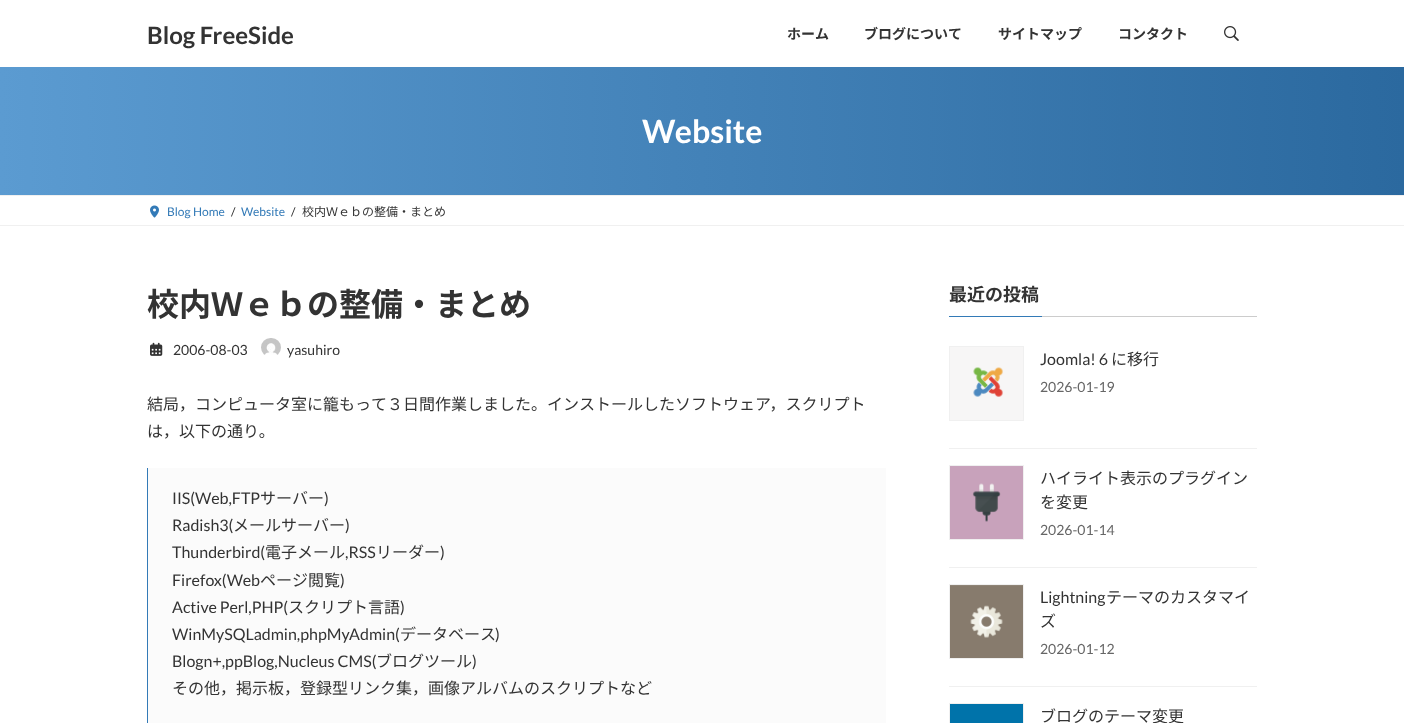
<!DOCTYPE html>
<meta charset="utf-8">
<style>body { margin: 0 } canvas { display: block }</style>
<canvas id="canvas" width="1404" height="723"></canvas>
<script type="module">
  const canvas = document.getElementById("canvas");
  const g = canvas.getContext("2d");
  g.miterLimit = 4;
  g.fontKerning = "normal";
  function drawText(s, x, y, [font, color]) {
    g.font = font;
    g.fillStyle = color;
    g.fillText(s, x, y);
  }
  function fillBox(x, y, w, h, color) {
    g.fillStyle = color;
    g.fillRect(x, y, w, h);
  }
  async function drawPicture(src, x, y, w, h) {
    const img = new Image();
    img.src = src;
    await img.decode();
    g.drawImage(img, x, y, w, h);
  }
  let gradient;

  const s1 = ["bold 24px Lato", "#333333"];
  const s2 = ["bold 14px Noto Sans JP", "#333333"];
  const s3 = ["bold 32px Lato", "#FFFFFF"];
  const s4 = ["12px Lato", "#337AB7"];
  const s5 = ["12px Lato", "#333333"];
  const s6 = ["12px Noto Sans JP", "#333333"];
  const s7 = ["bold 32px Noto Sans JP", "#333333"];
  const s8 = ["14px Lato", "#333333"];
  const s9 = ["16px Noto Sans JP", "#333333"];
  const s10 = ["16px Lato", "#333333"];
  const s11 = ["bold 18px Noto Sans JP", "#333333"];
  const s12 = ["14px Lato", "#666666"];

  fillBox(0, 0, 1404, 723, "#FFFFFF");
  drawText("Blog FreeSide", 147, 44, s1);
  drawText("ホーム", 787, 39, s2);
  drawText("ブログについて", 864, 39, s2);
  drawText("サイトマップ", 998, 39, s2);
  drawText("コンタクト", 1118, 39, s2);
  await drawPicture("pic1.png", 1224, 26, 15, 15);
  gradient = g.createLinearGradient(0, 131, 1404, 131);
  gradient.addColorStop(0, "#5B9BD1");
  gradient.addColorStop(1, "#2B699F");
  g.fillStyle = gradient;
  g.fillRect(0, 67, 1404, 128);
  drawText("Website", 642, 143, s3);
  fillBox(0, 195, 1404, 1, "#F0F0F0");
  fillBox(0, 225, 1404, 1, "#F0F0F0");
  await drawPicture("pic2.png", 150, 205, 9, 13);
  drawText("Blog Home", 167, 216, s4);
  drawText("/", 231, 216, s5);
  drawText("Website", 241, 216, s4);
  drawText("/", 291, 216, s5);
  drawText("校内Ｗｅｂの整備・まとめ", 302, 216, s6);
  drawText("校内Ｗｅｂの整備・まとめ", 147, 316, s7);
  await drawPicture("pic3.png", 150, 342, 13, 14);
  drawText("2006-08-03", 173, 355, s8);
  await drawPicture("pic4.png", 261, 338, 20, 17);
  drawText("yasuhiro", 287, 355, s8);
  drawText("結局，コンピュータ室に籠もって３日間作業しました。インストールしたソフトウェア，スクリプト", 147, 410, s9);
  drawText("は，以下の通り。", 147, 437, s9);
  fillBox(148, 468, 738, 255, "#FBFBFB");
  fillBox(147, 468, 1, 255, "#337AB7");
  drawText("IIS(Web,FTP", 172, 504, s10);
  drawText("サーバー", 260, 504, s9);
  drawText(")", 324, 504, s10);
  drawText("Radish3(", 172, 531, s10);
  drawText("メールサーバー", 233, 531, s9);
  drawText(")", 345, 531, s10);
  drawText("Thunderbird(", 172, 558, s10);
  drawText("電子メール", 265, 558, s9);
  drawText(",RSS", 345, 558, s10);
  drawText("リーダー", 376, 558, s9);
  drawText(")", 440, 558, s10);
  drawText("Firefox(Web", 172, 586, s10);
  drawText("ページ閲覧", 260, 586, s9);
  drawText(")", 340, 586, s10);
  drawText("Active Perl,PHP(", 172, 613, s10);
  drawText("スクリプト言語", 288, 613, s9);
  drawText(")", 400, 613, s10);
  drawText("WinMySQLadmin,phpMyAdmin(", 172, 640, s10);
  drawText("データベース", 400, 640, s9);
  drawText(")", 495, 640, s10);
  drawText("Blogn+,ppBlog,Nucleus CMS(", 172, 667, s10);
  drawText("ブログツール", 376, 667, s9);
  drawText(")", 472, 667, s10);
  drawText("その他，掲示板，登録型リンク集，画像アルバムのスクリプトなど", 172, 694, s9);
  fillBox(1042, 316, 215, 1, "#CCCCCC");
  drawText("最近の投稿", 949, 301, s11);
  fillBox(949, 316, 93, 1, "#337AB7");
  fillBox(949, 448, 308, 1, "#F0F0F0");
  g.strokeStyle = "#F0F0F0";
  g.strokeRect(949.5, 346.5, 74, 74);
  await drawPicture("pic5.png", 950, 347, 73, 73);
  drawText("Joomla! 6", 1040, 365, s10);
  drawText("に移行", 1111, 365, s9);
  drawText("2026-01-19", 1040, 392, s12);
  fillBox(949, 567, 308, 1, "#F0F0F0");
  g.strokeRect(949.5, 465.5, 74, 74);
  await drawPicture("pic6.png", 950, 466, 73, 73);
  drawText("ハイライト表示のプラグイン", 1040, 484, s9);
  drawText("を変更", 1040, 508, s9);
  drawText("2026-01-14", 1040, 535, s12);
  fillBox(949, 686, 308, 1, "#F0F0F0");
  g.strokeRect(949.5, 584.5, 74, 74);
  await drawPicture("pic7.png", 950, 585, 73, 73);
  drawText("Lightning", 1040, 603, s10);
  drawText("テーマのカスタマイ", 1106, 603, s9);
  drawText("ズ", 1040, 627, s9);
  drawText("2026-01-12", 1040, 654, s12);
  g.strokeRect(949.5, 703.5, 74, 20);
  fillBox(950, 704, 73, 19, "#0073AA");
  drawText("ブログのテーマ変更", 1040, 722, s9);
</script>
